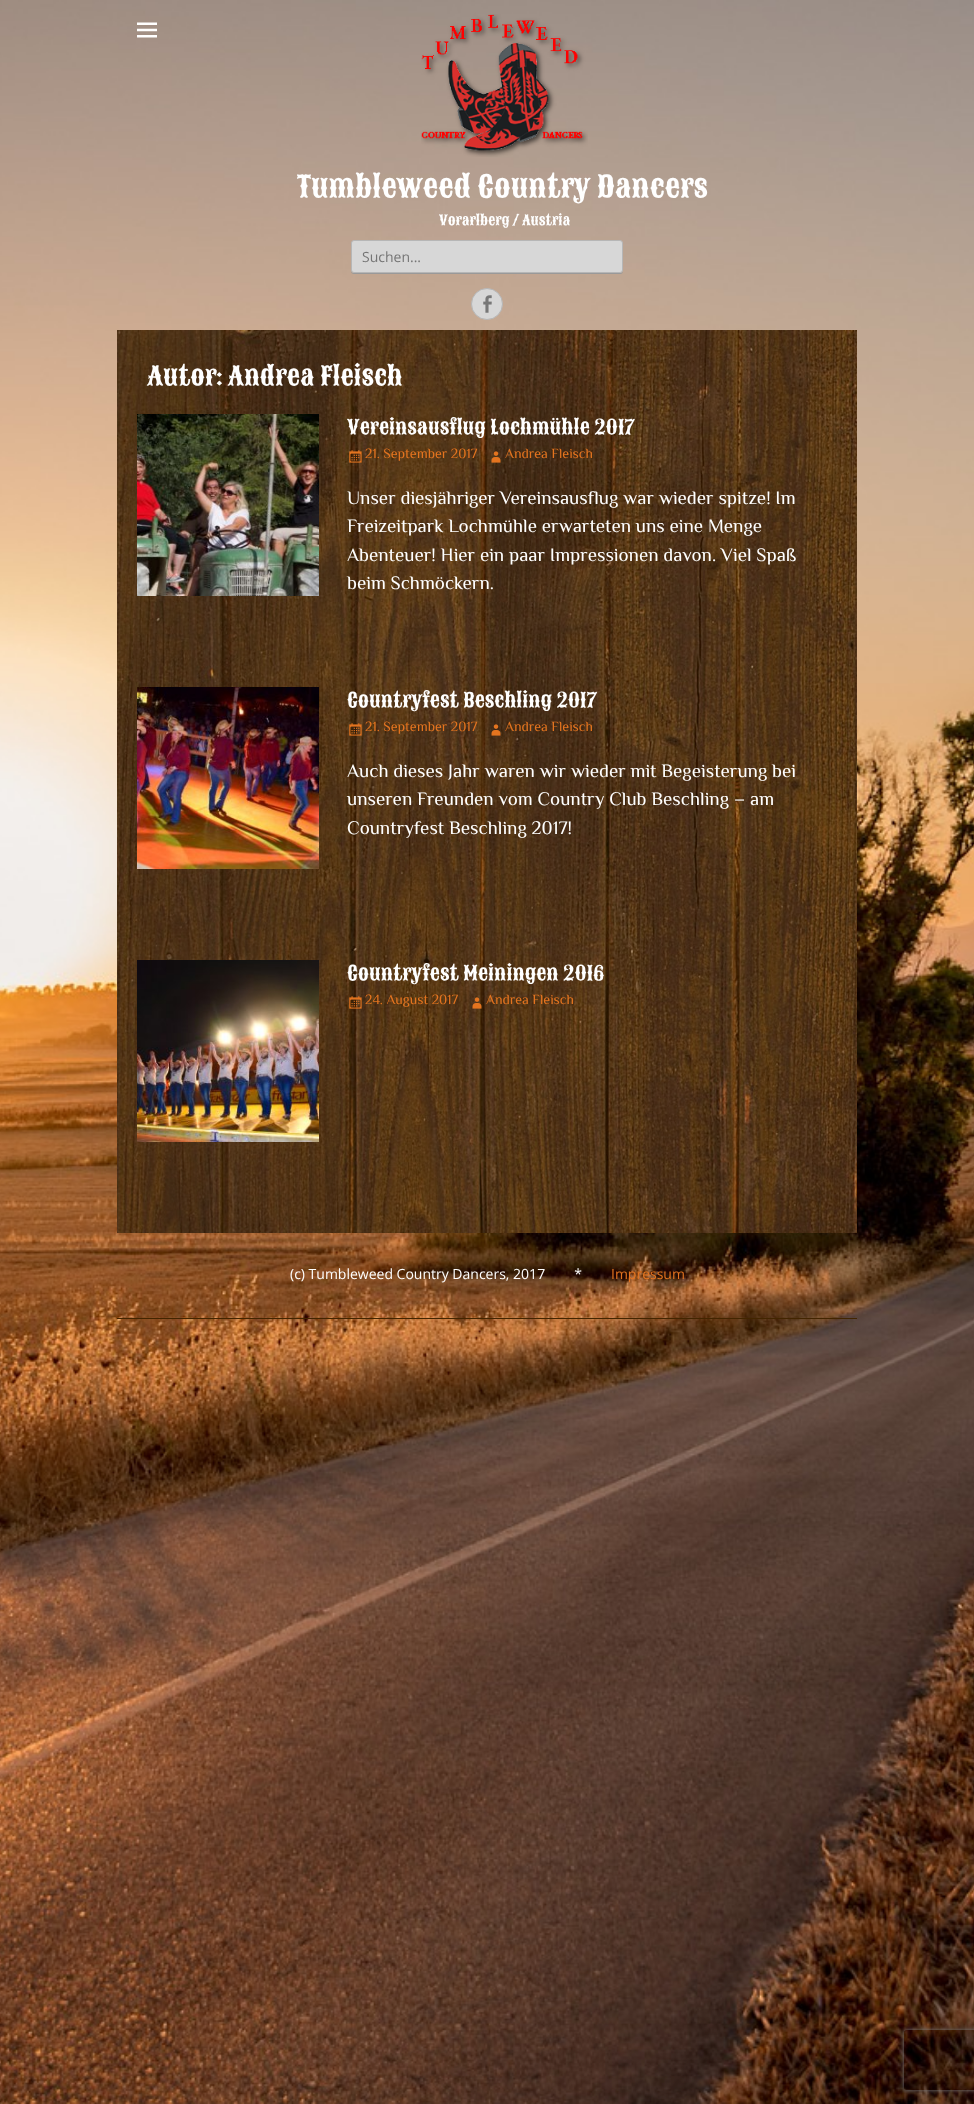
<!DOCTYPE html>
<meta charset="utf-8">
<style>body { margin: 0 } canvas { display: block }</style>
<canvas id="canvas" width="974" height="2104"></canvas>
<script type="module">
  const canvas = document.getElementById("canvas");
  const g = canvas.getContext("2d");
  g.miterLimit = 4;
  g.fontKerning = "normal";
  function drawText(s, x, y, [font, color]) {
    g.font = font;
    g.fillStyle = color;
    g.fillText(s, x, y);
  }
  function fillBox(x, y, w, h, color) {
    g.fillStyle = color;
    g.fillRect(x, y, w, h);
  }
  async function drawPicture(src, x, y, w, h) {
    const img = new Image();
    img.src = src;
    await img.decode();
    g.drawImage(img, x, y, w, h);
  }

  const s1 = ["30px Sancreek", "#FFFFFF"];
  const s2 = ["14px Sancreek", "#FFFFFF"];
  const s3 = ["14px Open Sans", "#757575"];
  const s4 = ["26px Sancreek", "#FFFFFF"];
  const s5 = ["20px Sancreek", "#FFFFFF"];
  const s6 = ["14px El Messiri", "#E4741F"];
  const s7 = ["19px El Messiri", "#FFFFFF"];
  const s8 = ["14px Open Sans", "#FFFFFF"];
  const s9 = ["14px Open Sans", "#E4741F"];

  fillBox(0, 0, 974, 2104, "#FFFFFF");
  await drawPicture("pic1.png", 0, 0, 974, 2104);
  await drawPicture("pic2.png", 137, 22, 20, 16);
  await drawPicture("pic3.png", 421, 14, 167, 143);
  drawText("Tumbleweed Country Dancers", 297, 197, s1);
  drawText("Vorarlberg / Austria", 439, 225, s2);
  g.fillStyle = "#999999";
  g.beginPath();
  g.moveTo(351, 270);
  g.lineTo(351, 271);
  g.bezierCurveTo(351, 273, 352, 274, 354, 274);
  g.lineTo(620, 274);
  g.bezierCurveTo(622, 274, 623, 273, 623, 271);
  g.lineTo(623, 270);
  g.bezierCurveTo(623, 272, 622, 273, 620, 273);
  g.lineTo(354, 273);
  g.bezierCurveTo(352, 273, 351, 272, 351, 270);
  g.closePath();
  g.fill();
  g.fillStyle = "#D7D7D7";
  g.beginPath();
  g.roundRect(351.5, 240.5, 271, 32, 2.5);
  g.fill();
  g.strokeStyle = "#B6B6B6";
  g.stroke();
  drawText("Suchen...", 362, 262, s3);
  g.fillStyle = "#D7D7D7";
  g.beginPath();
  g.arc(487, 304, 15.5, 0, Math.PI * 2);
  g.fill();
  g.stroke();
  await drawPicture("pic4.png", 483, 295, 9, 18);
  fillBox(117, 330, 740, 903, "#422500");
  await drawPicture("pic5.png", 117, 330, 740, 903);
  drawText("Autor: Andrea Fleisch", 147, 385, s4);
  await drawPicture("pic6.png", 137, 414, 182, 182);
  drawText("Vereinsausflug Lochmühle 2017", 347, 434, s5);
  await drawPicture("pic7.png", 349, 450, 13, 13);
  drawText("21. September 2017", 365, 458, s6);
  await drawPicture("pic8.png", 491, 451, 10, 12);
  drawText("Andrea Fleisch", 505, 458, s6);
  drawText("Unser diesjähriger Vereinsausflug war wieder spitze! Im", 347, 504, s7);
  drawText("Freizeitpark Lochmühle erwarteten uns eine Menge", 347, 532, s7);
  drawText("Abenteuer! Hier ein paar Impressionen davon. Viel Spaß", 347, 561, s7);
  drawText("beim Schmöckern.", 347, 589, s7);
  await drawPicture("pic9.png", 137, 687, 182, 182);
  drawText("Countryfest Beschling 2017", 347, 707, s5);
  await drawPicture("pic10.png", 349, 723, 13, 13);
  drawText("21. September 2017", 365, 731, s6);
  await drawPicture("pic11.png", 491, 724, 10, 12);
  drawText("Andrea Fleisch", 505, 731, s6);
  drawText("Auch dieses Jahr waren wir wieder mit Begeisterung bei", 347, 777, s7);
  drawText("unseren Freunden vom Country Club Beschling – am", 347, 805, s7);
  drawText("Countryfest Beschling 2017!", 347, 834, s7);
  await drawPicture("pic12.png", 137, 960, 182, 182);
  drawText("Countryfest Meiningen 2016", 347, 980, s5);
  await drawPicture("pic13.png", 349, 996, 13, 13);
  drawText("24. August 2017", 365, 1004, s6);
  await drawPicture("pic14.png", 472, 997, 10, 12);
  drawText("Andrea Fleisch", 486, 1004, s6);
  drawText("(c) Tumbleweed Country Dancers, 2017        *", 290, 1279, s8);
  drawText("Impressum", 611, 1279, s9);
  fillBox(117, 1318, 740, 1, "#422500");
  g.save();
  g.beginPath();
  g.moveTo(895, 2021);
  g.lineTo(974, 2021);
  g.lineTo(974, 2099);
  g.lineTo(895, 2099);
  g.closePath();
  g.moveTo(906, 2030);
  g.lineTo(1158, 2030);
  g.bezierCurveTo(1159, 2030, 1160, 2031, 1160, 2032);
  g.lineTo(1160, 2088);
  g.bezierCurveTo(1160, 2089, 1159, 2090, 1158, 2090);
  g.lineTo(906, 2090);
  g.bezierCurveTo(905, 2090, 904, 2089, 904, 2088);
  g.lineTo(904, 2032);
  g.bezierCurveTo(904, 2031, 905, 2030, 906, 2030);
  g.closePath();
  g.clip("evenodd");
  g.fillStyle = "#808080";
  g.filter = "blur(2.5px)";
  g.beginPath();
  g.roundRect(904, 2030, 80, 60, 2);
  g.fill();
  g.filter = "none";
  g.restore();
</script>
